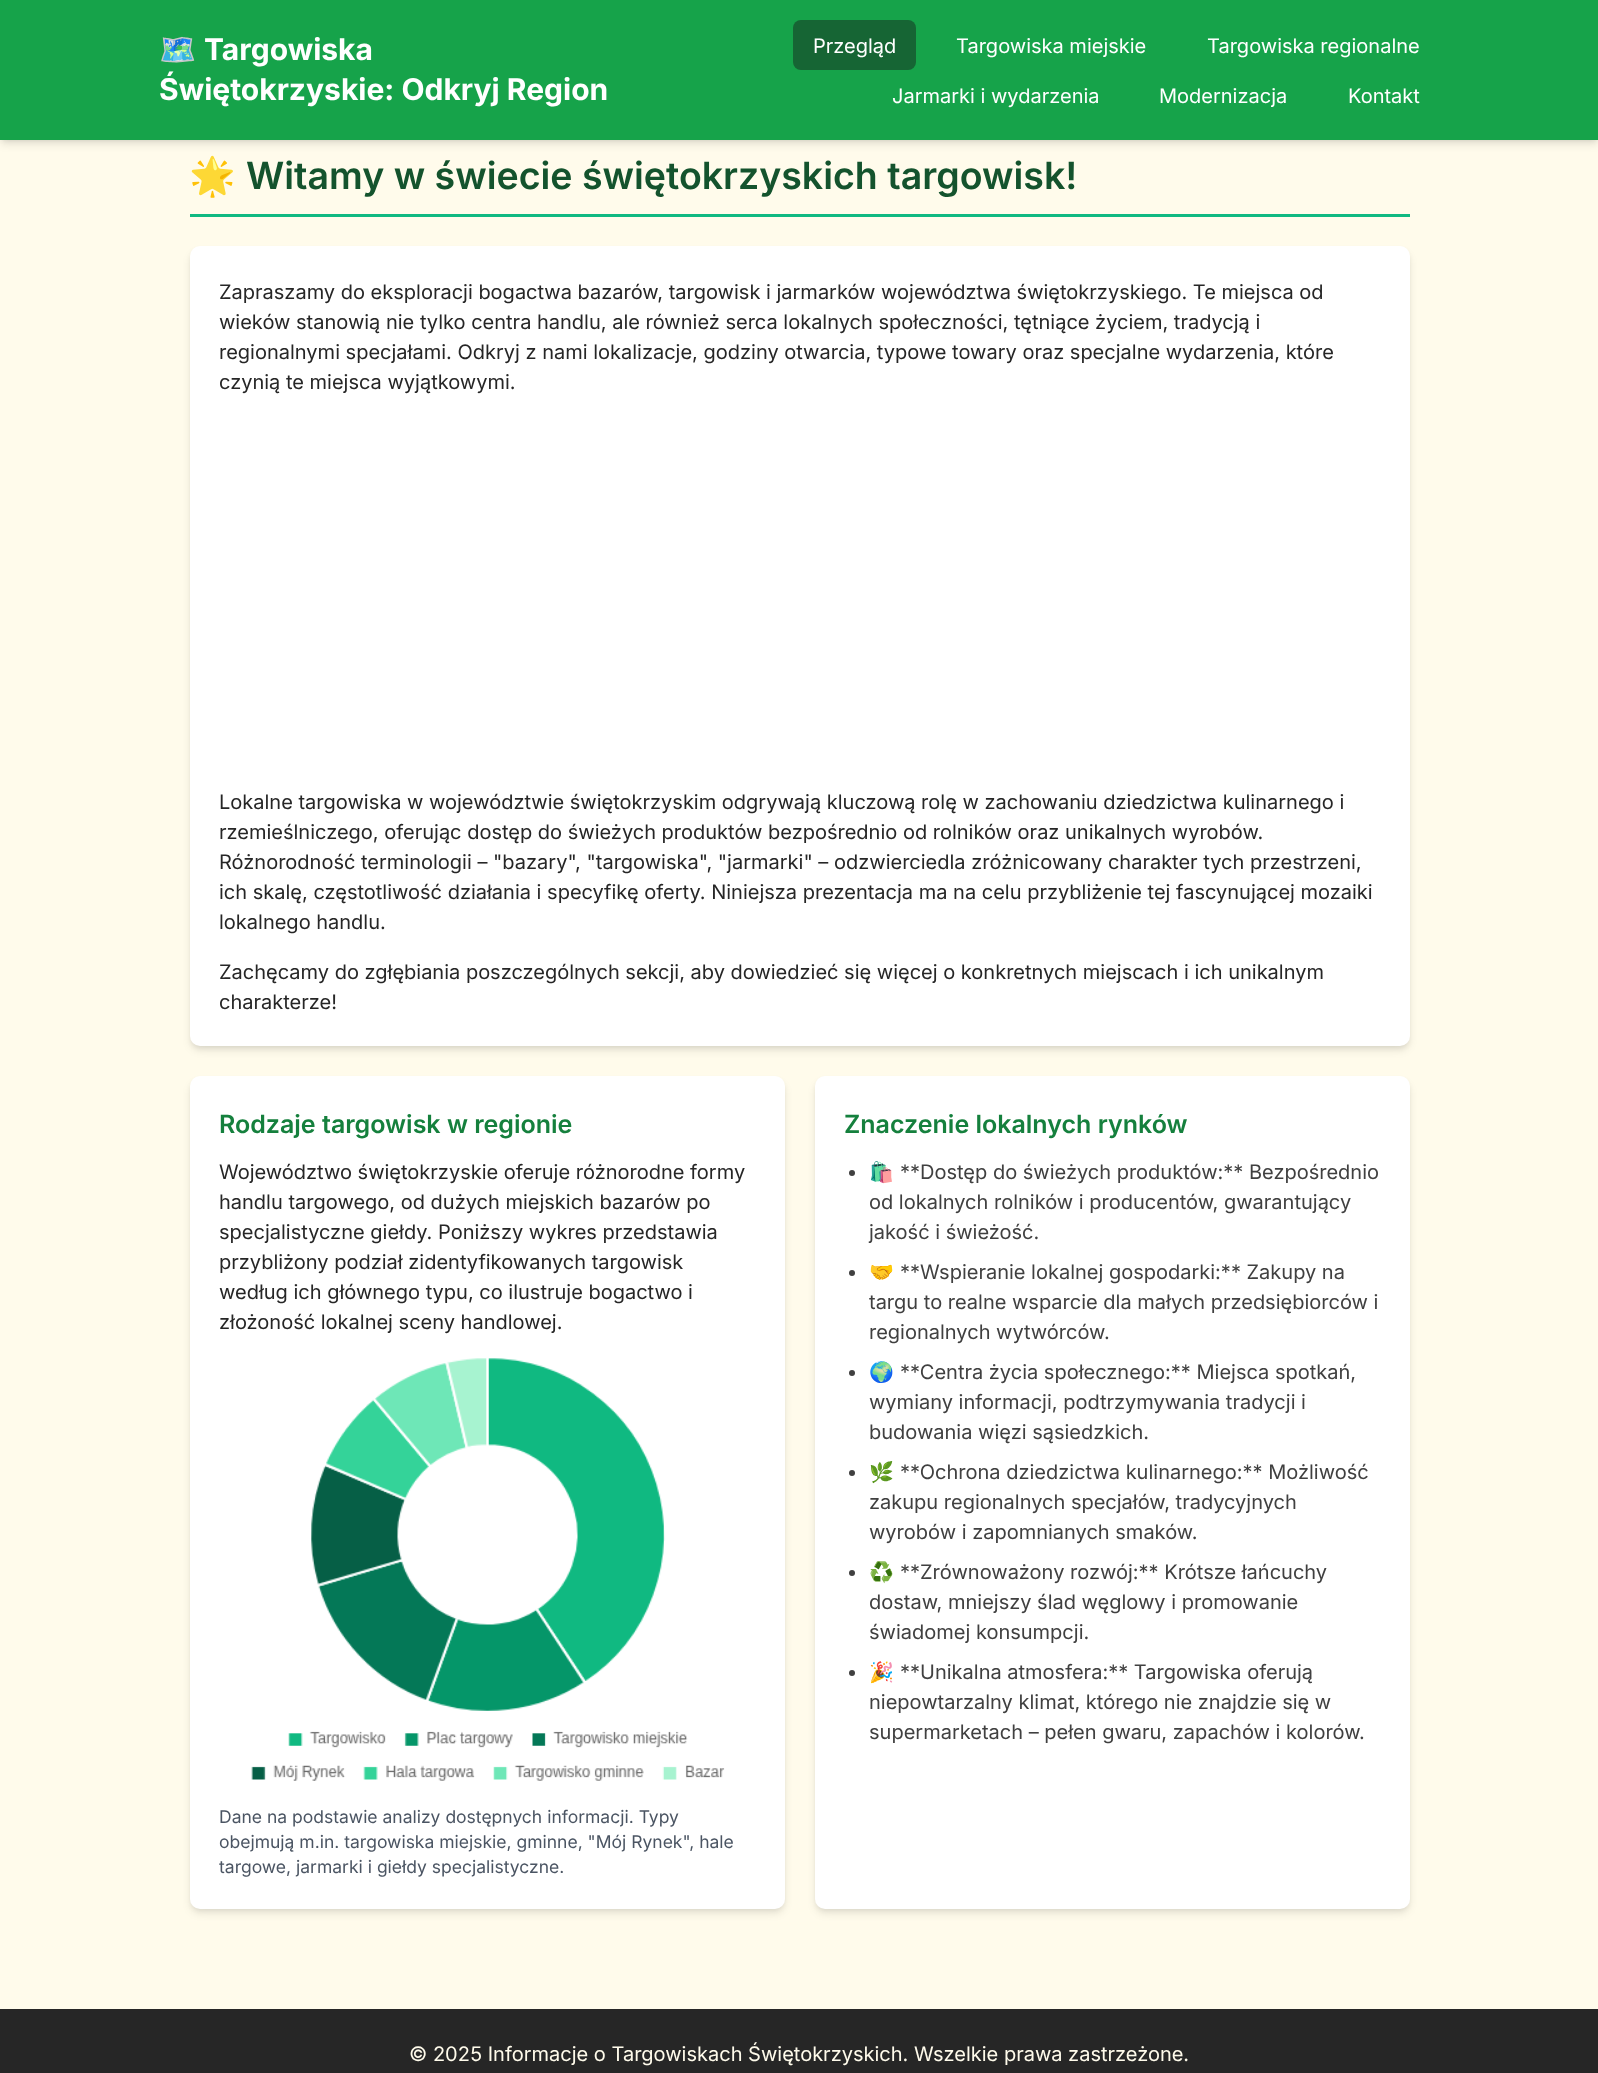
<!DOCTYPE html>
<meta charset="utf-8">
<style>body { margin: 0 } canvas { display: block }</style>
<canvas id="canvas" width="1598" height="2073"></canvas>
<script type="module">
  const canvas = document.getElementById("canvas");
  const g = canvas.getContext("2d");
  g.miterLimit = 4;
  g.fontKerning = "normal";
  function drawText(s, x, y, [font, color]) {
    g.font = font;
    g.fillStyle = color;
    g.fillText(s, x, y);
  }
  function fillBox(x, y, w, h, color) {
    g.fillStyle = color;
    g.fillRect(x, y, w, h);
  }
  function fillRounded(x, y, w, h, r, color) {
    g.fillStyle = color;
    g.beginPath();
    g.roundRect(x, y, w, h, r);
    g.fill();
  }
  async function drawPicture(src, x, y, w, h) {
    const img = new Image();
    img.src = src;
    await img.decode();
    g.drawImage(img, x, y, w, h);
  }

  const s1 = ["bold 30px Noto Color Emoji", "#FFFFFF"];
  const s2 = ["bold 30px Inter", "#FFFFFF"];
  const s3 = ["20px Inter", "#FFFFFF"];
  const s4 = ["bold 37.5px Noto Color Emoji", "#14532D"];
  const s5 = ["600 37.5px Inter", "#14532D"];
  const s6 = ["20px Inter", "#262626"];
  const s7 = ["600 25px Inter", "#15803D"];
  const s8 = ["17.5px Inter", "#4B5563"];
  const s9 = ["20px Noto Color Emoji", "#404040"];
  const s10 = ["20px Inter", "#404040"];
  const s11 = ["20px Inter", "#FFFBEB"];

  fillBox(0, 0, 1598, 2073, "#FFFBEB");
  g.fillStyle = "rgba(0, 0, 0, 0.1)";
  g.filter = "blur(2.5px)";
  g.beginPath();
  g.rect(3, 5, 1593, 135);
  g.fill();
  g.filter = "none";
  g.filter = "blur(4px)";
  g.beginPath();
  g.rect(1, 6, 1597, 138);
  g.fill();
  g.filter = "none";
  fillBox(0, 0, 1598, 140, "#16A34A");
  drawText("🗺️", 159, 60, s1);
  drawText("Targowiska", 204, 60, s2);
  drawText("Świętokrzyskie: Odkryj Region", 159, 100, s2);
  fillRounded(793, 20, 123, 50, 8, "#166534");
  drawText("Przegląd", 813, 53, s3);
  drawText("Targowiska miejskie", 956, 53, s3);
  drawText("Targowiska regionalne", 1207, 53, s3);
  drawText("Jarmarki i wydarzenia", 892, 103, s3);
  drawText("Modernizacja", 1159, 103, s3);
  drawText("Kontakt", 1348, 103, s3);
  fillBox(190, 214, 1220, 3, "#10B981");
  drawText("🌟", 189, 189, s4);
  drawText("Witamy w świecie świętokrzyskich targowisk!", 246, 189, s5);
  g.fillStyle = "rgba(0, 0, 0, 0.06)";
  g.filter = "blur(2.5px)";
  g.beginPath();
  g.roundRect(191, 250, 1218, 798, 9);
  g.fill();
  g.filter = "none";
  g.fillStyle = "rgba(0, 0, 0, 0.1)";
  g.filter = "blur(4px)";
  g.beginPath();
  g.roundRect(191, 253, 1218, 797, 9);
  g.fill();
  g.filter = "none";
  fillRounded(190, 246, 1220, 800, 10, "#FFFFFF");
  drawText("Zapraszamy do eksploracji bogactwa bazarów, targowisk i jarmarków województwa świętokrzyskiego. Te miejsca od", 219, 299, s6);
  drawText("wieków stanowią nie tylko centra handlu, ale również serca lokalnych społeczności, tętniące życiem, tradycją i", 219, 329, s6);
  drawText("regionalnymi specjałami. Odkryj z nami lokalizacje, godziny otwarcia, typowe towary oraz specjalne wydarzenia, które", 219, 359, s6);
  drawText("czynią te miejsca wyjątkowymi.", 219, 389, s6);
  drawText("Lokalne targowiska w województwie świętokrzyskim odgrywają kluczową rolę w zachowaniu dziedzictwa kulinarnego i", 219, 809, s6);
  drawText("rzemieślniczego, oferując dostęp do świeżych produktów bezpośrednio od rolników oraz unikalnych wyrobów.", 219, 839, s6);
  drawText("Różnorodność terminologii – \"bazary\", \"targowiska\", \"jarmarki\" – odzwierciedla zróżnicowany charakter tych przestrzeni,", 219, 869, s6);
  drawText("ich skalę, częstotliwość działania i specyfikę oferty. Niniejsza prezentacja ma na celu przybliżenie tej fascynującej mozaiki", 219, 899, s6);
  drawText("lokalnego handlu.", 219, 929, s6);
  drawText("Zachęcamy do zgłębiania poszczególnych sekcji, aby dowiedzieć się więcej o konkretnych miejscach i ich unikalnym", 219, 979, s6);
  drawText("charakterze!", 219, 1009, s6);
  g.fillStyle = "rgba(0, 0, 0, 0.06)";
  g.filter = "blur(2.5px)";
  g.beginPath();
  g.roundRect(191, 1080, 593, 830, 9);
  g.fill();
  g.filter = "none";
  g.fillStyle = "rgba(0, 0, 0, 0.1)";
  g.filter = "blur(4px)";
  g.beginPath();
  g.roundRect(191, 1083, 593, 830, 9);
  g.fill();
  g.filter = "none";
  fillRounded(190, 1076, 595, 833, 10, "#FFFFFF");
  drawText("Rodzaje targowisk w regionie", 219, 1133, s7);
  drawText("Województwo świętokrzyskie oferuje różnorodne formy", 219, 1179, s6);
  drawText("handlu targowego, od dużych miejskich bazarów po", 219, 1209, s6);
  drawText("specjalistyczne giełdy. Poniższy wykres przedstawia", 219, 1239, s6);
  drawText("przybliżony podział zidentyfikowanych targowisk", 219, 1269, s6);
  drawText("według ich głównego typu, co ilustruje bogactwo i", 219, 1299, s6);
  drawText("złożoność lokalnej sceny handlowej.", 219, 1329, s6);
  await drawPicture("pic1.png", 251, 1358, 474, 423);
  drawText("Dane na podstawie analizy dostępnych informacji. Typy", 219, 1823, s8);
  drawText("obejmują m.in. targowiska miejskie, gminne, \"Mój Rynek\", hale", 219, 1848, s8);
  drawText("targowe, jarmarki i giełdy specjalistyczne.", 219, 1873, s8);
  g.fillStyle = "rgba(0, 0, 0, 0.06)";
  g.filter = "blur(2.5px)";
  g.beginPath();
  g.roundRect(816, 1080, 593, 830, 9);
  g.fill();
  g.filter = "none";
  g.fillStyle = "rgba(0, 0, 0, 0.1)";
  g.filter = "blur(4px)";
  g.beginPath();
  g.roundRect(816, 1083, 593, 830, 9);
  g.fill();
  g.filter = "none";
  fillRounded(815, 1076, 595, 833, 10, "#FFFFFF");
  drawText("Znaczenie lokalnych rynków", 844, 1133, s7);
  g.fillStyle = "#404040";
  g.beginPath();
  g.arc(852, 1173, 3, 0, Math.PI * 2);
  g.fill();
  drawText("🛍️", 869, 1179, s9);
  drawText("**Dostęp do świeżych produktów:** Bezpośrednio", 900, 1179, s10);
  drawText("od lokalnych rolników i producentów, gwarantujący", 869, 1209, s10);
  drawText("jakość i świeżość.", 869, 1239, s10);
  g.beginPath();
  g.arc(852, 1273, 3, 0, Math.PI * 2);
  g.fill();
  drawText("🤝", 869, 1279, s9);
  drawText("**Wspieranie lokalnej gospodarki:** Zakupy na", 900, 1279, s10);
  drawText("targu to realne wsparcie dla małych przedsiębiorców i", 869, 1309, s10);
  drawText("regionalnych wytwórców.", 869, 1339, s10);
  g.beginPath();
  g.arc(852, 1373, 3, 0, Math.PI * 2);
  g.fill();
  drawText("🌍", 869, 1379, s9);
  drawText("**Centra życia społecznego:** Miejsca spotkań,", 900, 1379, s10);
  drawText("wymiany informacji, podtrzymywania tradycji i", 869, 1409, s10);
  drawText("budowania więzi sąsiedzkich.", 869, 1439, s10);
  g.beginPath();
  g.arc(852, 1473, 3, 0, Math.PI * 2);
  g.fill();
  drawText("🌿", 869, 1479, s9);
  drawText("**Ochrona dziedzictwa kulinarnego:** Możliwość", 900, 1479, s10);
  drawText("zakupu regionalnych specjałów, tradycyjnych", 869, 1509, s10);
  drawText("wyrobów i zapomnianych smaków.", 869, 1539, s10);
  g.beginPath();
  g.arc(852, 1573, 3, 0, Math.PI * 2);
  g.fill();
  drawText("♻️", 869, 1579, s9);
  drawText("**Zrównoważony rozwój:** Krótsze łańcuchy", 900, 1579, s10);
  drawText("dostaw, mniejszy ślad węglowy i promowanie", 869, 1609, s10);
  drawText("świadomej konsumpcji.", 869, 1639, s10);
  g.beginPath();
  g.arc(852, 1673, 3, 0, Math.PI * 2);
  g.fill();
  drawText("🎉", 869, 1679, s9);
  drawText("**Unikalna atmosfera:** Targowiska oferują", 900, 1679, s10);
  drawText("niepowtarzalny klimat, którego nie znajdzie się w", 869, 1709, s10);
  drawText("supermarketach – pełen gwaru, zapachów i kolorów.", 869, 1739, s10);
  fillBox(0, 2009, 1598, 64, "#262626");
  drawText("© 2025 Informacje o Targowiskach Świętokrzyskich. Wszelkie prawa zastrzeżone.", 409, 2061, s11);
</script>
